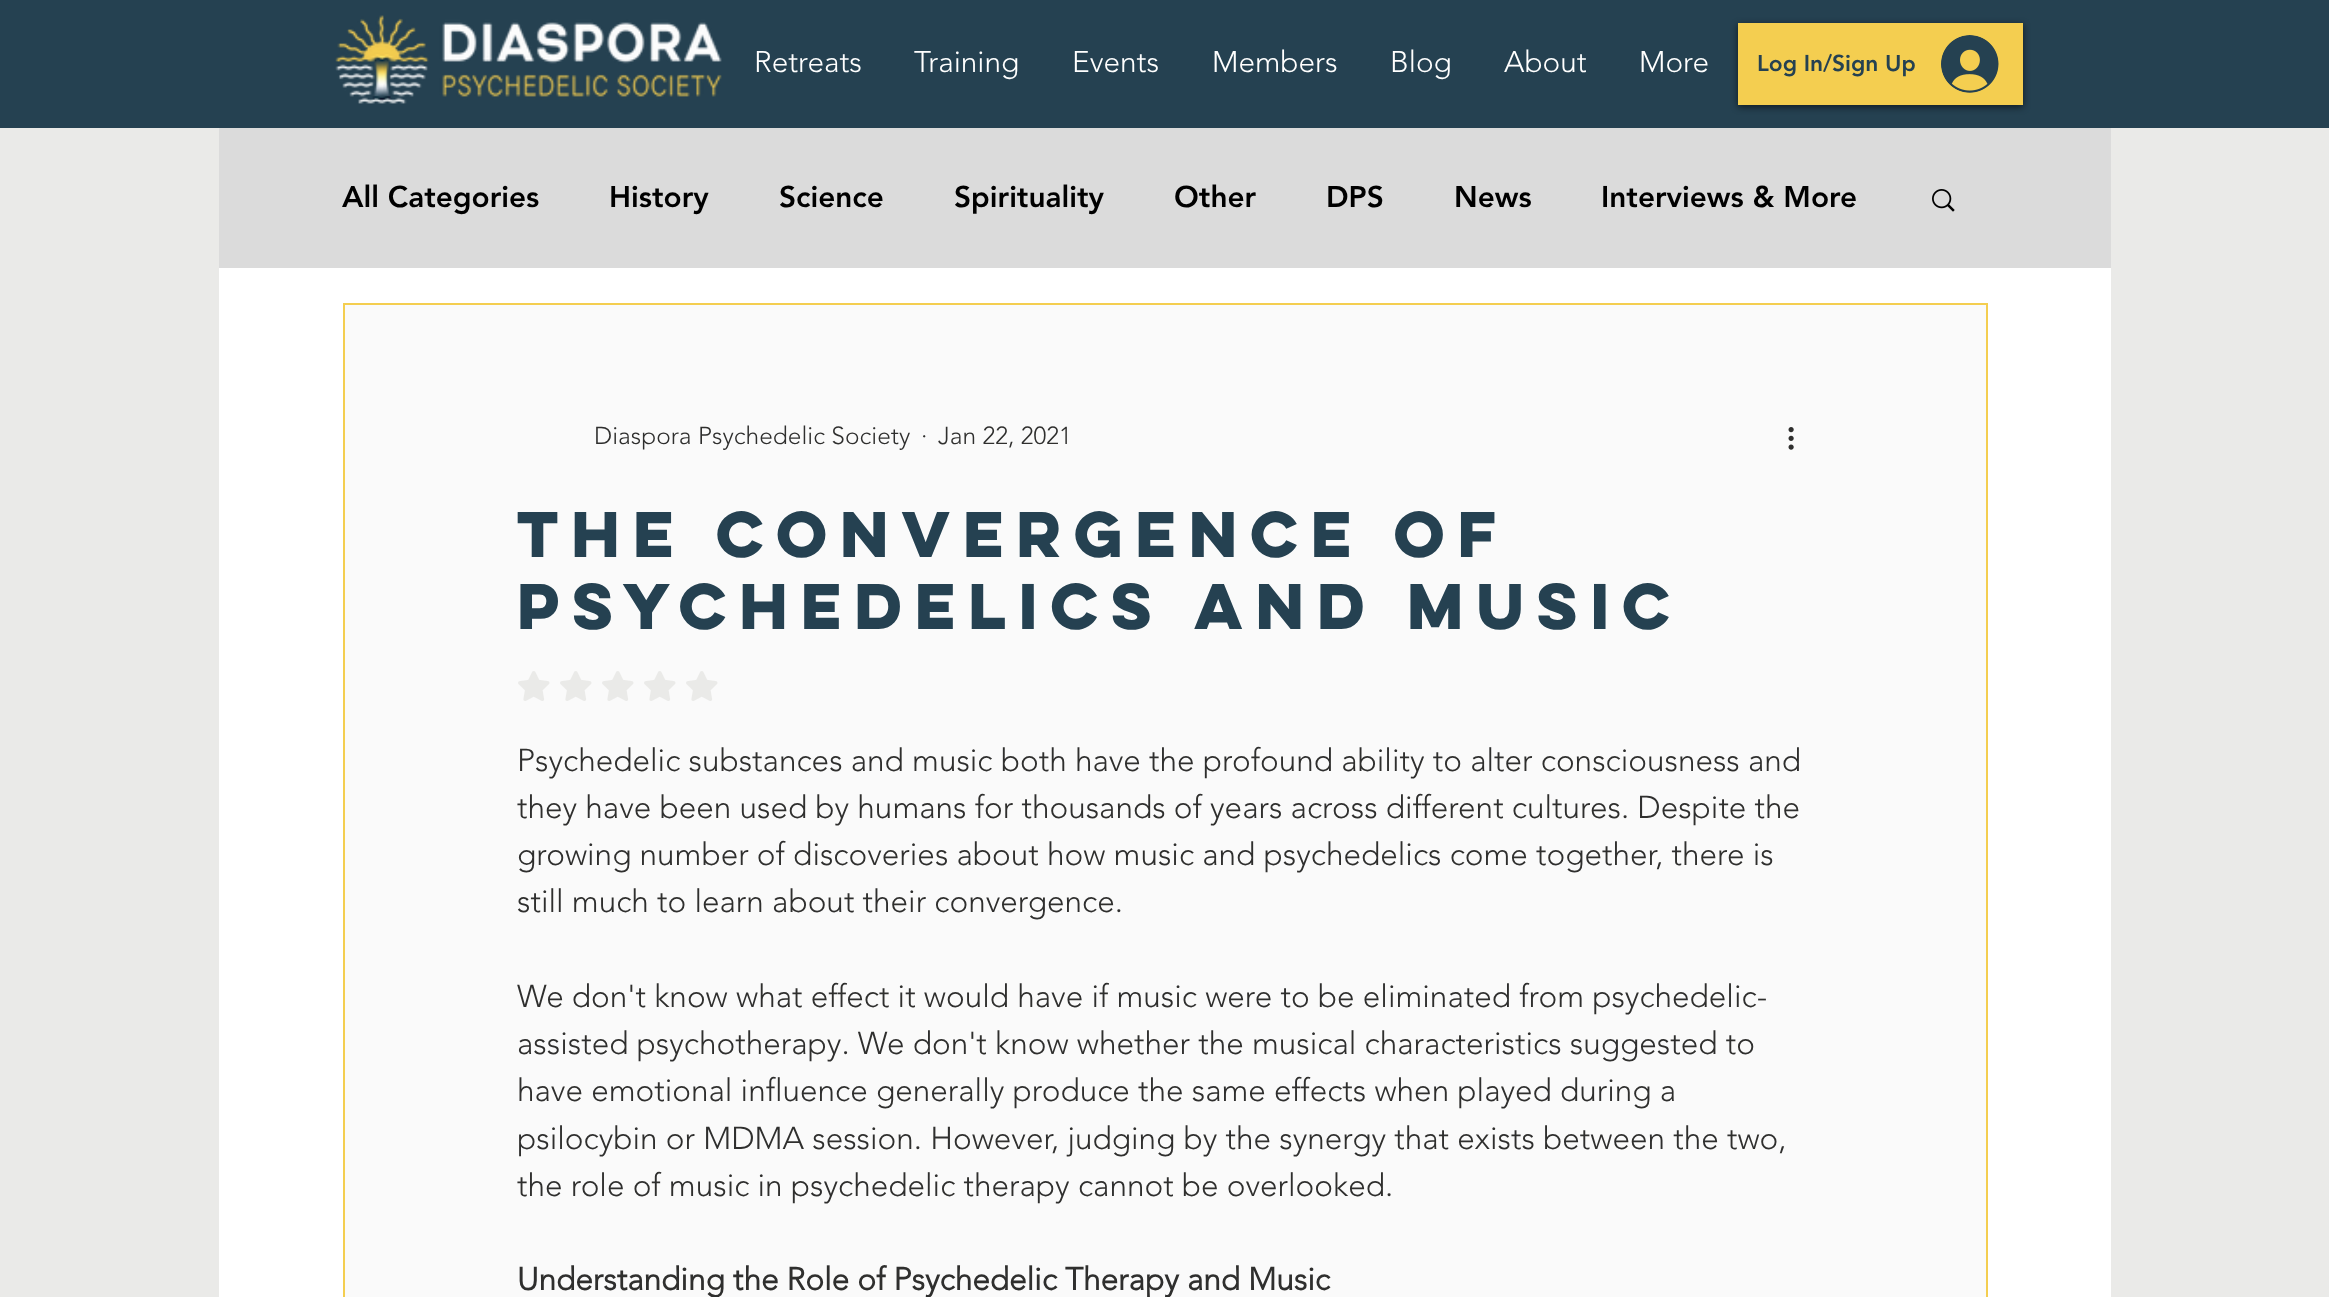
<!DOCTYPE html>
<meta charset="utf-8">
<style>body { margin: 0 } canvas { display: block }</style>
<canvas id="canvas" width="2329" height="1297"></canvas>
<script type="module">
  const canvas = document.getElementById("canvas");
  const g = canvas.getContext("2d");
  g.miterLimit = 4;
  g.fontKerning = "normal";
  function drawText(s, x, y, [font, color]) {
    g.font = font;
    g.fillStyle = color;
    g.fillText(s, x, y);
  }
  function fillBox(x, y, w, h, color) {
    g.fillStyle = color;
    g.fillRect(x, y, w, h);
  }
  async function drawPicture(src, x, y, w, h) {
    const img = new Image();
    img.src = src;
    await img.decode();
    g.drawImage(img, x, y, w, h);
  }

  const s1 = ["300 29.75px 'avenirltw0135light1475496'", "#FFFFFF"];
  const s2 = ["900 22.75px 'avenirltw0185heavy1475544'", "#254151"];
  const s3 = ["900 29.75px 'avenirltw0185heavy1475544'", "#000000"];
  const s4 = ["300 24.5px 'avenirltw0135light1475496'", "#2F2F2E"];
  const s5 = ["bold 57.75px 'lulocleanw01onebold'", "#254151"];
  const s6 = ["300 31.5px 'avenirltw0135light1475496'", "#2F2F2E"];
  const s7 = ["bold 31.5px 'avenirltw0135light1475496'", "#2F2F2E"];

  fillBox(0, 0, 2329, 1297, "#EAEAE8");
  fillBox(0, 0, 2329, 128, "#254151");
  await drawPicture("pic1.png", 335, 15, 387, 89);
  drawText("Retreats", 754, 72, s1);
  drawText("Training", 914, 72, s1);
  drawText("Events", 1072, 72, s1);
  drawText("Members", 1212, 72, s1);
  drawText("Blog", 1390, 72, s1);
  drawText("About", 1504, 72, s1);
  drawText("More", 1639, 72, s1);
  g.fillStyle = "rgba(0, 0, 0, 0.6)";
  g.filter = "blur(3.5px)";
  g.beginPath();
  g.rect(1738, 25, 285, 82);
  g.fill();
  g.filter = "none";
  fillBox(1738, 23, 285, 82, "#F4CE50");
  drawText("Log In/Sign Up", 1757, 71, s2);
  await drawPicture("pic2.png", 1941, 35, 58, 58);
  fillBox(219, 268, 1892, 1029, "#FFFFFF");
  fillBox(219, 128, 1892, 140, "#DBDBDB");
  drawText("All Categories", 342, 207, s3);
  drawText("History", 609, 207, s3);
  drawText("Science", 779, 207, s3);
  drawText("Spirituality", 954, 207, s3);
  drawText("Other", 1174, 207, s3);
  drawText("DPS", 1326, 207, s3);
  drawText("News", 1454, 207, s3);
  drawText("Interviews & More", 1601, 207, s3);
  await drawPicture("pic3.png", 1932, 189, 23, 23);
  g.fillStyle = "#FAFAFA";
  g.beginPath();
  g.rect(344, 304, 1643, 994);
  g.fill();
  g.strokeStyle = "#F4CE50";
  g.lineWidth = 2;
  g.stroke();
  drawText("Diaspora Psychedelic Society", 594, 444, s4);
  drawText("·", 921, 444, s4);
  drawText("Jan 22, 2021", 938, 444, s4);
  await drawPicture("pic4.png", 1788, 427, 6, 23);
  drawText("The Convergence of", 517, 557, s5);
  drawText("Psychedelics and Music", 517, 629, s5);
  await drawPicture("pic5.png", 518, 671, 32, 30);
  await drawPicture("pic5.png", 560, 671, 32, 30);
  await drawPicture("pic5.png", 602, 671, 32, 30);
  await drawPicture("pic5.png", 644, 671, 32, 30);
  await drawPicture("pic5.png", 686, 671, 32, 30);
  drawText("Psychedelic substances and music both have the profound ability to alter consciousness and", 517, 771, s6);
  drawText("they have been used by humans for thousands of years across different cultures. Despite the", 517, 818, s6);
  drawText("growing number of discoveries about how music and psychedelics come together, there is", 517, 865, s6);
  drawText("still much to learn about their convergence.", 517, 912, s6);
  drawText("We don't know what effect it would have if music were to be eliminated from psychedelic-", 517, 1007, s6);
  drawText("assisted psychotherapy. We don't know whether the musical characteristics suggested to", 517, 1054, s6);
  drawText("have emotional influence generally produce the same effects when played during a", 517, 1101, s6);
  drawText("psilocybin or MDMA session. However, judging by the synergy that exists between the two,", 517, 1149, s6);
  drawText("the role of music in psychedelic therapy cannot be overlooked.", 517, 1196, s6);
  drawText("Understanding the Role of Psychedelic Therapy and Music", 517, 1290, s7);
</script>
